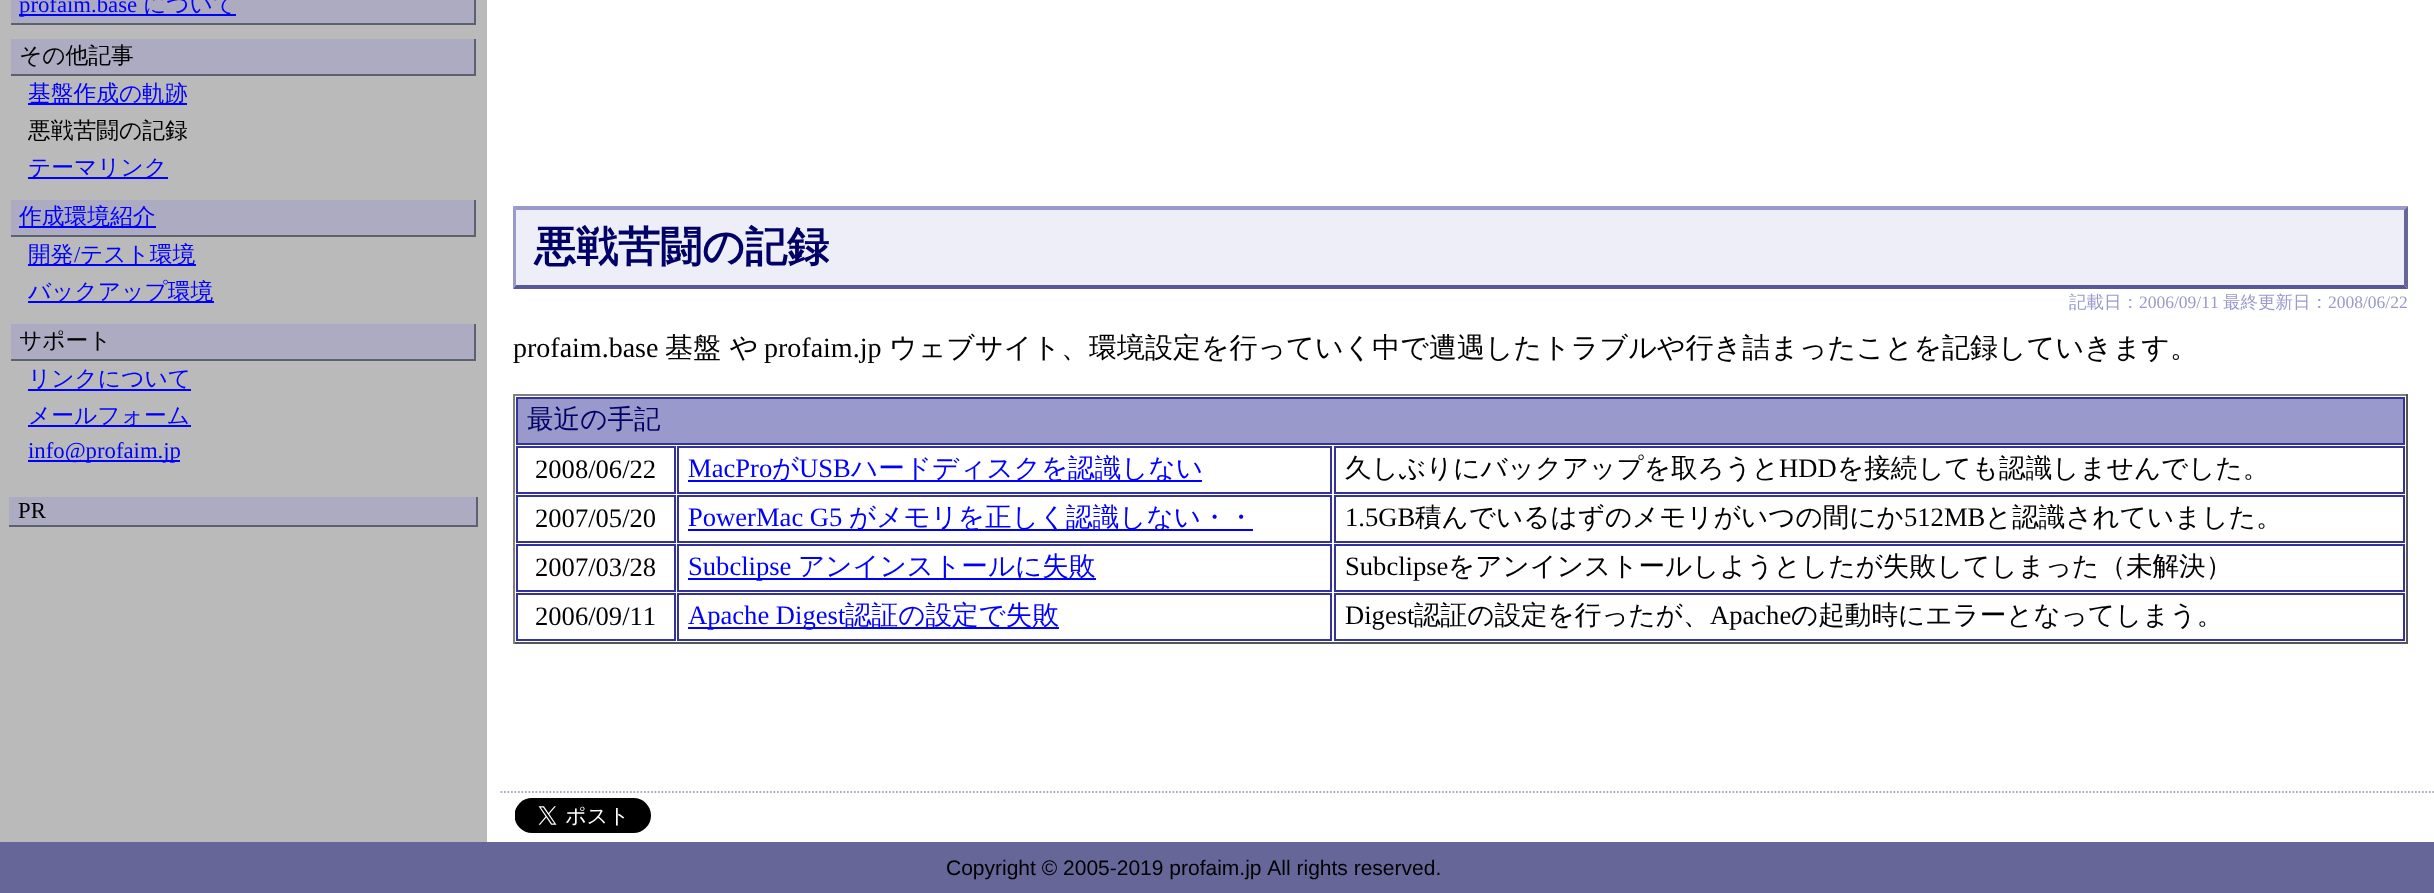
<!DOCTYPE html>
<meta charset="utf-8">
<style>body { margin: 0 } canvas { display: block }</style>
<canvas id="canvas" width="2434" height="893"></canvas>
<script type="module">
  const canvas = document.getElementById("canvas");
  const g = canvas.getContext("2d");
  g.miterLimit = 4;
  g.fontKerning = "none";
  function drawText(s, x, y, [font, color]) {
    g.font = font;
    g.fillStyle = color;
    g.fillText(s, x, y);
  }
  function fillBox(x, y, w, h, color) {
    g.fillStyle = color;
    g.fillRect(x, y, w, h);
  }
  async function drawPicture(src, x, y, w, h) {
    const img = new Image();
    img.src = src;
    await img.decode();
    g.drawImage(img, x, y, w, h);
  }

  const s1 = ["22.75px Liberation Serif", "#0000FF"];
  const s2 = ["500 22.75px WenQuanYi Zen Hei", "#0000FF"];
  const s3 = ["500 22.75px WenQuanYi Zen Hei", "#000000"];
  const s4 = ["22.75px Liberation Serif", "#000000"];
  const s5 = ["bold 42px WenQuanYi Zen Hei", "#000066"];
  const s6 = ["500 17.5px WenQuanYi Zen Hei", "#9999CC"];
  const s7 = ["17.5px Liberation Serif", "#9999CC"];
  const s8 = ["28px Liberation Serif", "#000000"];
  const s9 = ["500 28px WenQuanYi Zen Hei", "#000000"];
  const s10 = ["500 26.6px WenQuanYi Zen Hei", "#000066"];
  const s11 = ["26.6px Liberation Serif", "#000000"];
  const s12 = ["26.6px Liberation Serif", "#0000FF"];
  const s13 = ["500 26.6px WenQuanYi Zen Hei", "#0000FF"];
  const s14 = ["500 26.6px WenQuanYi Zen Hei", "#000000"];
  const s15 = ["21px Liberation Sans", "#000000"];

  fillBox(0, 0, 2434, 893, "#BABABA");
  fillBox(11, 0, 463, 23, "#ACABC2");
  fillBox(474, 0, 2, 25, "#5B616E");
  fillBox(11, 23, 465, 2, "#5B616E");
  fillBox(19, 14, 217, 2, "#0000FF");
  drawText("profaim.base", 19, 12, s1);
  drawText("について", 143, 12, s2);
  fillBox(11, 39, 463, 35, "#ACABC2");
  fillBox(474, 39, 2, 36, "#5B616E");
  fillBox(11, 74, 465, 2, "#5B616E");
  drawText("その他記事", 19, 63, s3);
  fillBox(28, 103, 159, 2, "#0000FF");
  drawText("基盤作成の軌跡", 28, 101, s2);
  drawText("悪戦苦闘の記録", 28, 138, s3);
  fillBox(28, 177, 140, 2, "#0000FF");
  drawText("テーマリンク", 28, 175, s2);
  fillBox(11, 200, 463, 35, "#ACABC2");
  fillBox(474, 200, 2, 36, "#5B616E");
  fillBox(11, 235, 465, 2, "#5B616E");
  fillBox(19, 226, 137, 2, "#0000FF");
  drawText("作成環境紹介", 19, 224, s2);
  fillBox(28, 264, 168, 2, "#0000FF");
  drawText("開発", 28, 262, s2);
  drawText("/", 74, 262, s1);
  drawText("テスト環境", 80, 262, s2);
  fillBox(28, 301, 186, 2, "#0000FF");
  drawText("バックアップ環境", 28, 299, s2);
  fillBox(11, 324, 463, 35, "#ACABC2");
  fillBox(474, 324, 2, 37, "#5B616E");
  fillBox(11, 359, 465, 2, "#5B616E");
  drawText("サポート", 19, 348, s3);
  fillBox(28, 389, 163, 2, "#0000FF");
  drawText("リンクについて", 28, 386, s2);
  fillBox(28, 425, 163, 2, "#0000FF");
  drawText("メールフォーム", 28, 423, s2);
  fillBox(28, 460, 152, 2, "#0000FF");
  drawText("info@profaim.jp", 28, 458, s1);
  fillBox(9, 497, 467, 28, "#ACABC2");
  fillBox(476, 497, 2, 30, "#5B616E");
  fillBox(9, 525, 469, 2, "#5B616E");
  drawText("PR", 18, 518, s4);
  fillBox(487, 0, 1947, 842, "#FFFFFF");
  fillBox(513, 207, 1895, 82, "#EDEEF8");
  g.fillStyle = "#9999CC";
  g.beginPath();
  g.moveTo(513, 206);
  g.lineTo(2408, 206);
  g.lineTo(2404, 210);
  g.lineTo(516, 210);
  g.closePath();
  g.fill();
  g.fillStyle = "#666699";
  g.beginPath();
  g.moveTo(2408, 206);
  g.lineTo(2408, 289);
  g.lineTo(2404, 285);
  g.lineTo(2404, 210);
  g.closePath();
  g.fill();
  g.fillStyle = "#575799";
  g.beginPath();
  g.moveTo(2408, 289);
  g.lineTo(513, 289);
  g.lineTo(516, 285);
  g.lineTo(2404, 285);
  g.closePath();
  g.fill();
  g.fillStyle = "#9999CC";
  g.beginPath();
  g.moveTo(513, 289);
  g.lineTo(513, 206);
  g.lineTo(516, 210);
  g.lineTo(516, 285);
  g.closePath();
  g.fill();
  drawText("悪戦苦闘の記録", 534, 261, s5);
  drawText("記載日：", 2069, 308, s6);
  drawText("2006/09/11", 2139, 308, s7);
  drawText("最終更新日：", 2223, 308, s6);
  drawText("2008/06/22", 2328, 308, s7);
  drawText("profaim.base", 513, 357, s8);
  drawText("基盤 や", 665, 357, s9);
  drawText("profaim.jp", 764, 357, s8);
  drawText("ウェブサイト、環境設定を行っていく中で遭遇したトラブルや行き詰まったことを記録していきます。", 889, 357, s9);
  fillBox(513, 394, 1895, 2, "#808080");
  fillBox(2406, 394, 2, 250, "#555555");
  fillBox(513, 642, 1895, 2, "#555555");
  fillBox(513, 394, 2, 250, "#808080");
  g.fillStyle = "#9999CC";
  g.beginPath();
  g.rect(517, 398, 1887, 46);
  g.fill();
  g.strokeStyle = "#333399";
  g.lineWidth = 2;
  g.stroke();
  drawText("最近の手記", 527, 428, s10);
  g.strokeRect(517, 447, 158, 46);
  drawText("2008/06/22", 535, 478, s11);
  g.strokeRect(678, 447, 653, 46);
  drawText("MacPro", 688, 477, s12);
  fillBox(688, 480, 514, 2, "#0000FF");
  drawText("が", 772, 477, s13);
  drawText("USB", 799, 477, s12);
  drawText("ハードディスクを認識しない", 851, 477, s13);
  g.strokeRect(1335, 447, 1069, 46);
  drawText("久しぶりにバックアップを取ろうと", 1345, 477, s14);
  drawText("HDD", 1779, 477, s11);
  drawText("を接続しても認識しませんでした。", 1837, 477, s14);
  g.strokeRect(517, 496, 158, 46);
  drawText("2007/05/20", 535, 527, s11);
  g.strokeRect(678, 496, 653, 46);
  drawText("PowerMac G5", 688, 526, s12);
  fillBox(688, 529, 565, 2, "#0000FF");
  drawText("がメモリを正しく認識しない・・", 849, 526, s13);
  g.strokeRect(1335, 496, 1069, 46);
  drawText("1.5GB", 1345, 526, s11);
  drawText("積んでいるはずのメモリがいつの間にか", 1415, 526, s14);
  drawText("512MB", 1904, 526, s11);
  drawText("と認識されていました。", 1985, 526, s14);
  g.strokeRect(517, 545, 158, 46);
  drawText("2007/03/28", 535, 576, s11);
  g.strokeRect(678, 545, 653, 46);
  fillBox(688, 578, 408, 2, "#0000FF");
  drawText("Subclipse", 688, 575, s12);
  drawText("アンインストールに失敗", 798, 575, s13);
  g.strokeRect(1335, 545, 1069, 46);
  drawText("Subclipse", 1345, 575, s11);
  drawText("をアンインストールしようとしたが失敗してしまった（未解決）", 1448, 575, s14);
  g.strokeRect(517, 594, 158, 46);
  drawText("2006/09/11", 535, 625, s11);
  g.strokeRect(678, 594, 653, 46);
  fillBox(688, 627, 371, 2, "#0000FF");
  drawText("Apache Digest", 688, 624, s12);
  drawText("認証の設定で失敗", 845, 624, s13);
  g.strokeRect(1335, 594, 1069, 46);
  drawText("Digest", 1345, 624, s11);
  drawText("認証の設定を行ったが、", 1414, 624, s14);
  drawText("Apache", 1710, 624, s11);
  drawText("の起動時にエラーとなってしまう。", 1791, 624, s14);
  g.beginPath();
  g.moveTo(500.5, 792);
  g.lineTo(2434, 792);
  g.strokeStyle = "#AAAAC3";
  g.lineWidth = 1.8;
  g.setLineDash([1.75, 1.75]);
  g.stroke();
  await drawPicture("pic1.png", 515, 798, 136, 35);
  fillBox(0, 842, 2434, 51, "#666699");
  drawText("Copyright © 2005-2019 profaim.jp All rights reserved.", 946, 875, s15);
</script>
